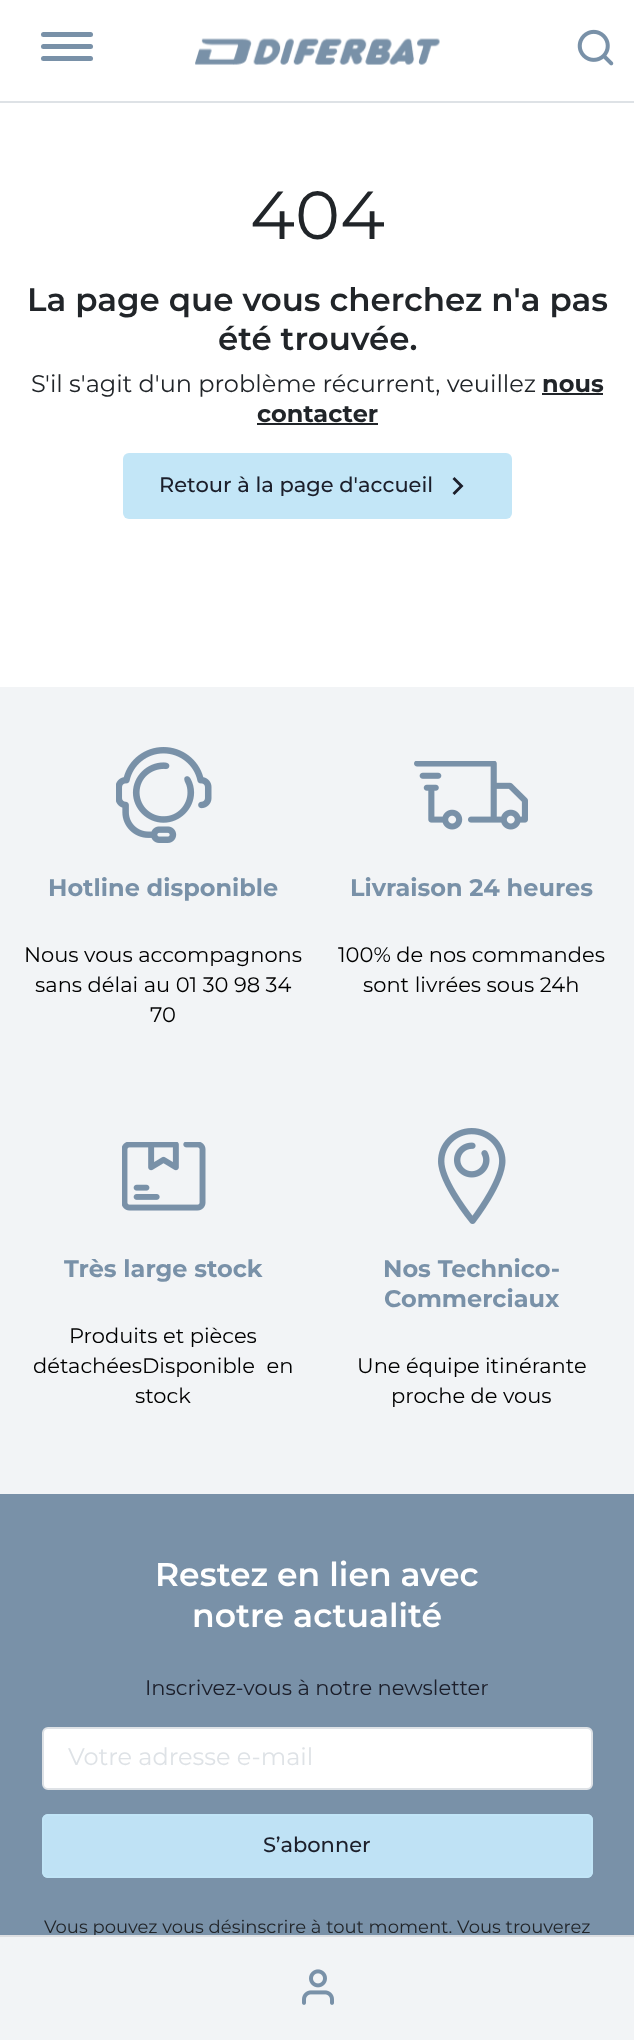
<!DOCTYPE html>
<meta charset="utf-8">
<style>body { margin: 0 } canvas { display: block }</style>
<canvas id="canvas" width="634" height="2040"></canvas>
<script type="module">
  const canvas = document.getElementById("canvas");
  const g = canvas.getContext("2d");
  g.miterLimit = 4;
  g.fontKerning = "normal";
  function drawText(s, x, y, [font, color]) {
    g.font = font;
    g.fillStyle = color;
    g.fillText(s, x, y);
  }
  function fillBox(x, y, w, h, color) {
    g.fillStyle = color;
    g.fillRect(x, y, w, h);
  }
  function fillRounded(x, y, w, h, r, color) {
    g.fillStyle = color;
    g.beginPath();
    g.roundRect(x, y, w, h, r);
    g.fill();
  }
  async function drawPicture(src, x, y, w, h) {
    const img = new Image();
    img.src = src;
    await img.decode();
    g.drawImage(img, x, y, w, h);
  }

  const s1 = ["100 68px Montserrat", "#212529"];
  const s2 = ["100 32.5px 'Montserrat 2'", "#212529"];
  const s3 = ["100 24px Montserrat", "#212529"];
  const s4 = ["100 24px 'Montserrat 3'", "#212529"];
  const s5 = ["100 21px 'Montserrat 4'", "#1C1F2B"];
  const s6 = ["100 18px Montserrat", "#212529"];
  const s7 = ["100 24px 'Montserrat 3'", "#7991A8"];
  const s8 = ["100 21px Montserrat", "#000000"];
  const s9 = ["100 33px 'Montserrat 2'", "#FFFFFF"];
  const s10 = ["100 21px Montserrat", "#1C1F2B"];
  const s11 = ["100 24px Montserrat", "#DEE2E6"];

  fillBox(0, 0, 634, 2040, "#FFFFFF");
  fillBox(0, 101, 634, 2, "#DEE2E6");
  fillRounded(41, 44, 52, 5, 2.5, "#7991A8");
  fillRounded(41, 32, 52, 5, 2.5, "#7991A8");
  fillRounded(41, 56, 52, 5, 2.5, "#7991A8");
  await drawPicture("pic1.png", 195, 38, 245, 27);
  await drawPicture("pic2.png", 577, 29, 37, 37);
  drawText("404", 250, 239, s1);
  drawText("La page que vous cherchez n'a pas", 27, 311, s2);
  drawText("été trouvée.", 218, 350, s2);
  drawText("S'il s'agit d'un problème récurrent, veuillez", 31, 392, s3);
  drawText("nous", 542, 392, s4);
  fillBox(542, 393, 61, 2, "#212529");
  drawText("contacter", 257, 422, s4);
  fillBox(257, 423, 121, 2, "#212529");
  fillRounded(123, 453, 389, 66, 6, "#C3E6F7");
  drawText("Retour à la page d'accueil", 159, 492, s5);
  g.beginPath();
  g.moveTo(452.5, 493);
  g.lineTo(459.5, 486);
  g.lineTo(452.5, 479);
  g.lineTo(454.5, 477);
  g.lineTo(463.5, 486);
  g.lineTo(454.5, 495);
  g.closePath();
  g.fill();
  fillBox(0, 1937, 634, 103, "#F2F4F6");
  fillBox(0, 1494, 634, 441, "#7991A8");
  drawText("Vous pouvez vous désinscrire à tout moment. Vous trouverez", 44, 1933, s6);
  fillBox(0, 1935, 634, 2, "#DDDFE2");
  await drawPicture("pic3.png", 302, 1969, 32, 36);
  fillBox(0, 687, 634, 807, "#F2F4F6");
  await drawPicture("pic4.png", 116, 747, 96, 96);
  drawText("Hotline disponible", 48, 896, s7);
  drawText("Nous vous accompagnons", 24, 962, s8);
  drawText("sans délai au 01 30 98 34", 35, 992, s8);
  drawText("70", 150, 1022, s8);
  await drawPicture("pic5.png", 414, 761, 114, 69);
  drawText("Livraison 24 heures", 350, 896, s7);
  drawText("100% de nos commandes", 338, 962, s8);
  drawText("sont livrées sous 24h", 363, 992, s8);
  await drawPicture("pic6.png", 122, 1142, 84, 69);
  drawText("Très large stock", 64, 1277, s7);
  drawText("Produits et pièces", 69, 1343, s8);
  g.wordSpacing = "6px";
  drawText("détachéesDisponible en", 33, 1373, s8);
  g.wordSpacing = "0px";
  drawText("stock", 135, 1403, s8);
  await drawPicture("pic7.png", 438, 1128, 68, 96);
  drawText("Nos Technico-", 383, 1277, s7);
  drawText("Commerciaux", 384, 1307, s7);
  drawText("Une équipe itinérante", 357, 1373, s8);
  drawText("proche de vous", 391, 1403, s8);
  drawText("Restez en lien avec", 155, 1586, s9);
  drawText("notre actualité", 192, 1627, s9);
  drawText("Inscrivez-vous à notre newsletter", 145, 1695, s10);
  g.fillStyle = "#FFFFFF";
  g.beginPath();
  g.roundRect(43, 1728, 549, 61, 5);
  g.fill();
  g.strokeStyle = "#DEE2E6";
  g.lineWidth = 2;
  g.stroke();
  drawText("Votre adresse e-mail", 68, 1765, s11);
  fillRounded(42, 1814, 551, 64, 6, "#BFE2F5");
  g.beginPath();
  g.roundRect(43, 1815, 549, 62, 5);
  g.strokeStyle = "rgba(193, 229, 247, 0.97)";
  g.stroke();
  drawText("S’abonner", 263, 1852, s5);
</script>
